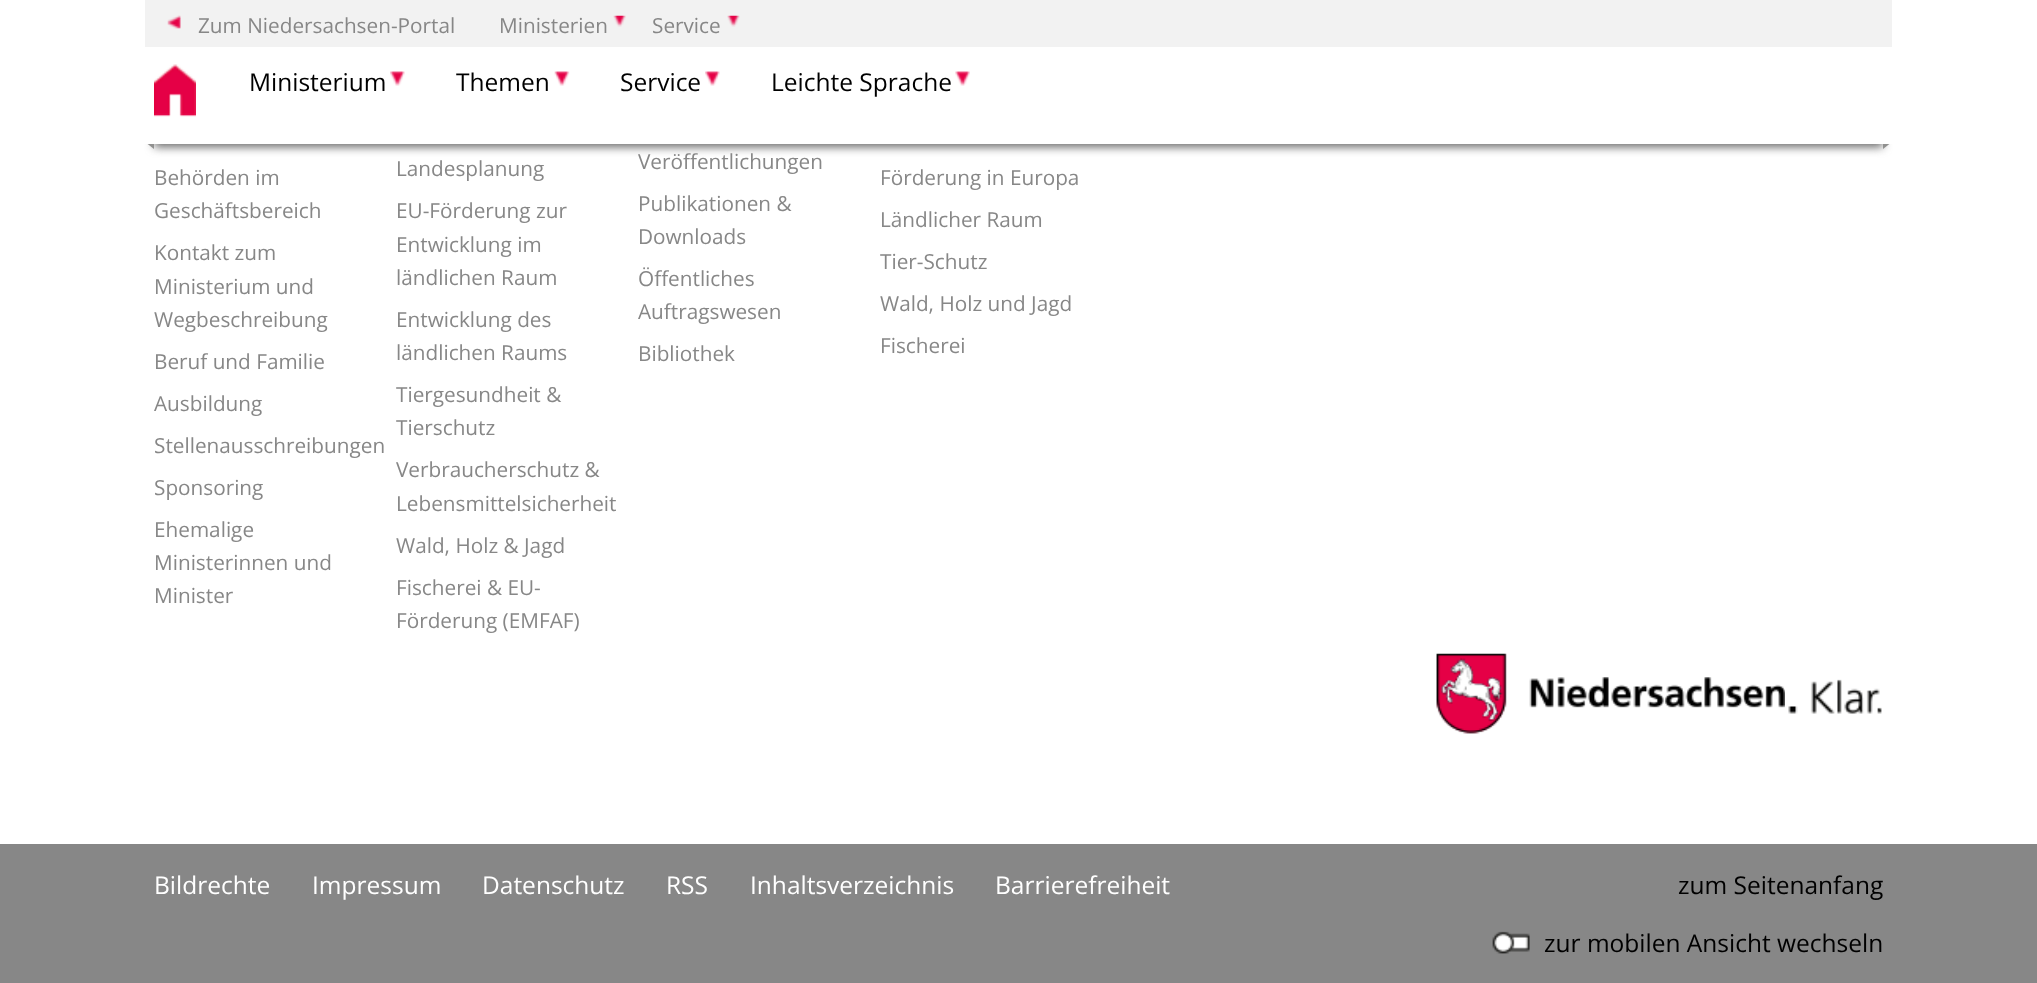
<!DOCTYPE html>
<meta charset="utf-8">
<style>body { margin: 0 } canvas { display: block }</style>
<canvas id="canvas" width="2037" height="983"></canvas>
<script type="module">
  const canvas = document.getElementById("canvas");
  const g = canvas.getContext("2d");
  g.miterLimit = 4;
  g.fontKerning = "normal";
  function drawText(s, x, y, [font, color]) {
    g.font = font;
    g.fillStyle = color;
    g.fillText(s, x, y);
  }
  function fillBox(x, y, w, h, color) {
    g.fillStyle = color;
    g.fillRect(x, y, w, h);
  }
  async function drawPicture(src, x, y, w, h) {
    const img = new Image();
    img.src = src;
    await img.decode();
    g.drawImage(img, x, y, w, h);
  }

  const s1 = ["20.75px Open Sans", "#878787"];
  const s2 = ["24.5px Open Sans", "#000000"];
  const s3 = ["24.5px Open Sans", "#FFFFFF"];

  fillBox(0, 0, 2037, 983, "#FFFFFF");
  g.fillStyle = "#666666";
  g.filter = "blur(5px)";
  g.beginPath();
  g.rect(154, 51, 1729, 96);
  g.fill();
  g.filter = "none";
  g.fillStyle = "#90908F";
  g.beginPath();
  g.moveTo(154, 143.5);
  g.lineTo(154, 149);
  g.lineTo(147, 143.5);
  g.closePath();
  g.fill();
  fillBox(143, 42, 11, 102, "#FFFFFF");
  g.fillStyle = "#90908F";
  g.beginPath();
  g.moveTo(1883, 149);
  g.lineTo(1883, 143.5);
  g.lineTo(1890, 143.5);
  g.closePath();
  g.fill();
  fillBox(1883, 42, 11, 102, "#FFFFFF");
  fillBox(145, 0, 1747, 47, "#F2F2F2");
  await drawPicture("pic1.png", 167, 15, 14, 14);
  drawText("Zum Niedersachsen-Portal", 198, 33, s1);
  drawText("Ministerien", 499, 33, s1);
  await drawPicture("pic2.png", 613, 15, 13, 12);
  drawText("Service", 652, 33, s1);
  await drawPicture("pic3.png", 727, 15, 13, 12);
  fillBox(154, 47, 1729, 97, "#FFFFFF");
  await drawPicture("pic4.png", 154, 64, 42, 53);
  drawText("Ministerium", 249, 91, s2);
  await drawPicture("pic5.png", 390, 71, 15, 15);
  drawText("Themen", 456, 91, s2);
  await drawPicture("pic6.png", 554, 71, 16, 15);
  drawText("Service", 620, 91, s2);
  await drawPicture("pic7.png", 705, 71, 15, 15);
  drawText("Leichte Sprache", 771, 91, s2);
  await drawPicture("pic8.png", 955, 71, 15, 15);
  drawText("Behörden im", 154, 185, s1);
  drawText("Geschäftsbereich", 154, 218, s1);
  drawText("Kontakt zum", 154, 260, s1);
  drawText("Ministerium und", 154, 294, s1);
  drawText("Wegbeschreibung", 154, 327, s1);
  drawText("Beruf und Familie", 154, 369, s1);
  drawText("Ausbildung", 154, 411, s1);
  drawText("Stellenausschreibungen", 154, 453, s1);
  drawText("Sponsoring", 154, 495, s1);
  drawText("Ehemalige", 154, 537, s1);
  drawText("Ministerinnen und", 154, 570, s1);
  drawText("Minister", 154, 603, s1);
  drawText("Landesplanung", 396, 176, s1);
  drawText("EU-Förderung zur", 396, 218, s1);
  drawText("Entwicklung im", 396, 252, s1);
  drawText("ländlichen Raum", 396, 285, s1);
  drawText("Entwicklung des", 396, 327, s1);
  drawText("ländlichen Raums", 396, 360, s1);
  drawText("Tiergesundheit &", 396, 402, s1);
  drawText("Tierschutz", 396, 435, s1);
  drawText("Verbraucherschutz &", 396, 477, s1);
  drawText("Lebensmittelsicherheit", 396, 511, s1);
  drawText("Wald, Holz & Jagd", 396, 553, s1);
  drawText("Fischerei & EU-", 396, 595, s1);
  drawText("Förderung (EMFAF)", 396, 628, s1);
  drawText("Veröffentlichungen", 638, 169, s1);
  drawText("Publikationen &", 638, 211, s1);
  drawText("Downloads", 638, 244, s1);
  drawText("Öffentliches", 638, 286, s1);
  drawText("Auftragswesen", 638, 319, s1);
  drawText("Bibliothek", 638, 361, s1);
  drawText("Förderung in Europa", 880, 185, s1);
  drawText("Ländlicher Raum", 880, 227, s1);
  drawText("Tier-Schutz", 880, 269, s1);
  drawText("Wald, Holz und Jagd", 880, 311, s1);
  drawText("Fischerei", 880, 353, s1);
  await drawPicture("pic9.png", 1436, 653, 349, 81);
  await drawPicture("pic10.png", 1788, 679, 94, 35);
  fillBox(0, 844, 2037, 139, "#878787");
  drawText("Bildrechte", 154, 894, s3);
  drawText("Impressum", 312, 894, s3);
  drawText("Datenschutz", 482, 894, s3);
  drawText("RSS", 666, 894, s3);
  drawText("Inhaltsverzeichnis", 750, 894, s3);
  drawText("Barrierefreiheit", 995, 894, s3);
  drawText("zum Seitenanfang", 1678, 894, s2);
  await drawPicture("pic11.png", 1492, 931, 38, 23);
  drawText("zur mobilen Ansicht wechseln", 1544, 952, s2);
</script>
